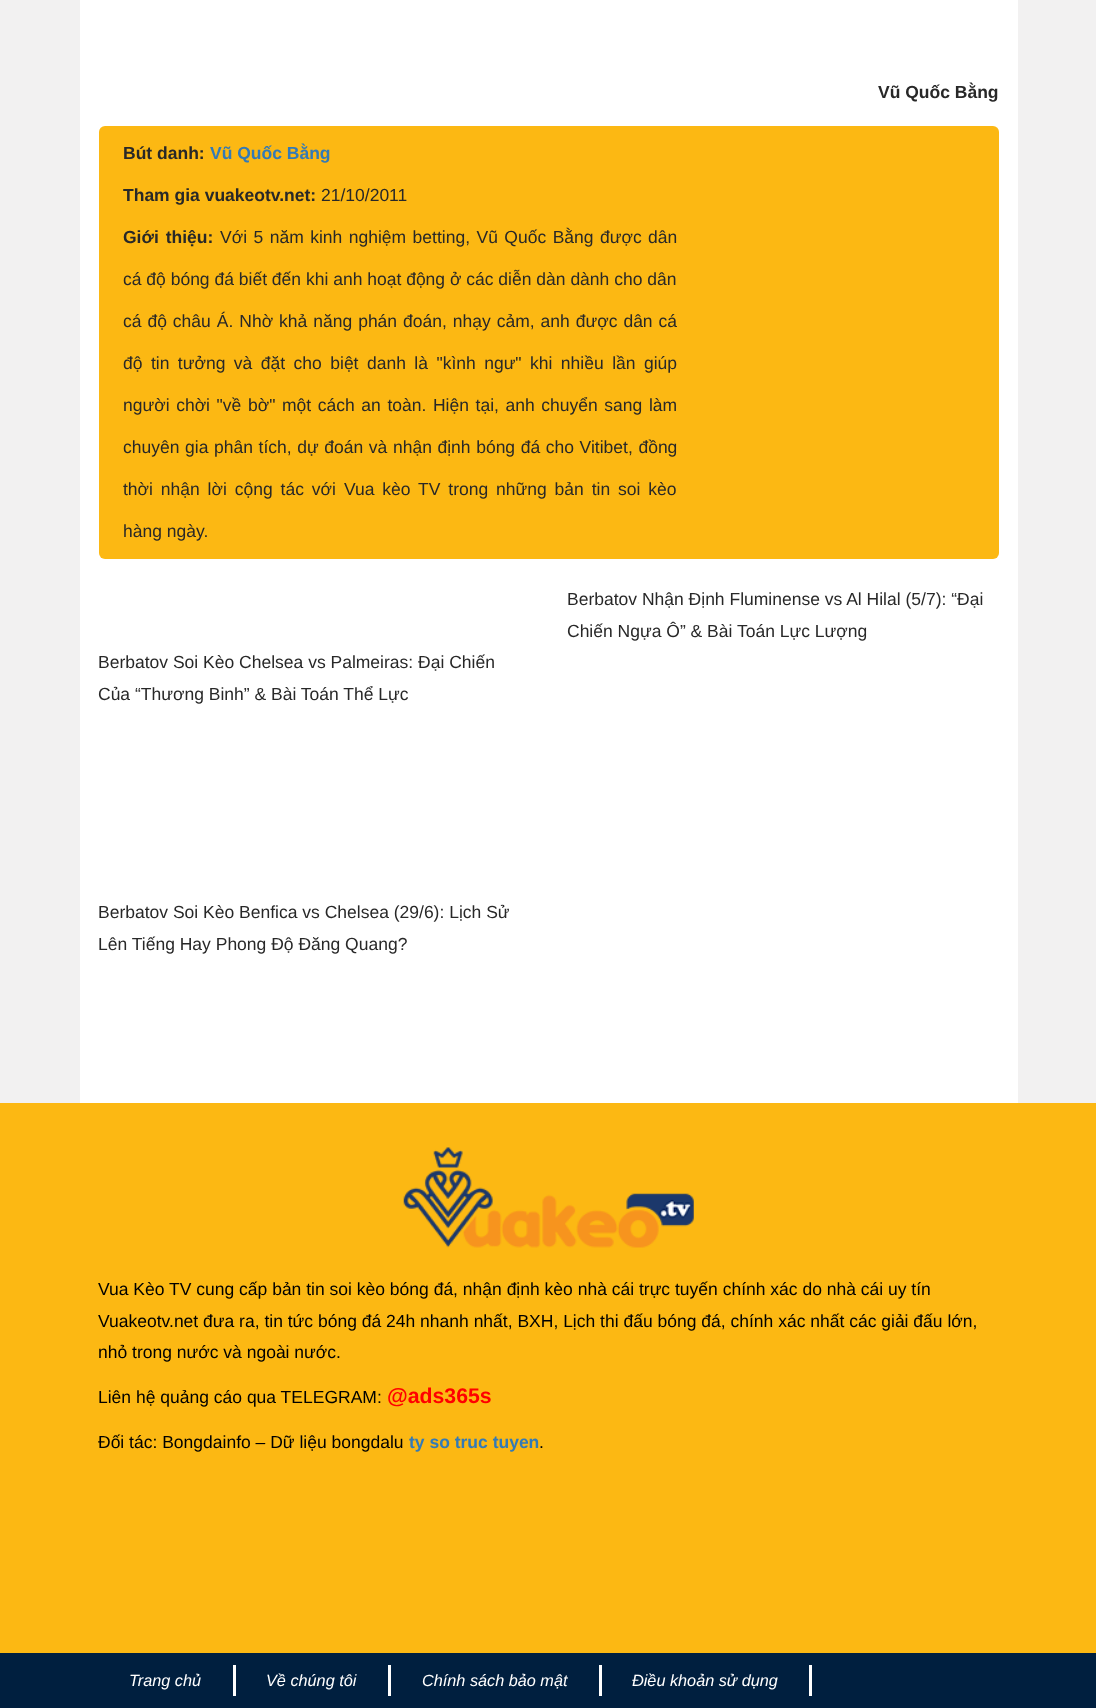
<!DOCTYPE html>
<meta charset="utf-8">
<style>body { margin: 0 } canvas { display: block }</style>
<canvas id="canvas" width="1096" height="1708"></canvas>
<script type="module">
  const canvas = document.getElementById("canvas");
  const g = canvas.getContext("2d");
  g.miterLimit = 4;
  g.fontKerning = "normal";
  function drawText(s, x, y, [font, color]) {
    g.font = font;
    g.fillStyle = color;
    g.fillText(s, x, y);
  }
  function fillBox(x, y, w, h, color) {
    g.fillStyle = color;
    g.fillRect(x, y, w, h);
  }
  function fillRounded(x, y, w, h, r, color) {
    g.fillStyle = color;
    g.beginPath();
    g.roundRect(x, y, w, h, r);
    g.fill();
  }
  async function drawPicture(src, x, y, w, h) {
    const img = new Image();
    img.src = src;
    await img.decode();
    g.drawImage(img, x, y, w, h);
  }

  const s1 = ["bold 17.5px Liberation Sans", "#282828"];
  const s2 = ["bold 17.5px Liberation Sans", "#337AB7"];
  const s3 = ["17.5px Liberation Sans", "#282828"];
  const s4 = ["17.5px Liberation Sans", "#000000"];
  const s5 = ["bold 21.25px Liberation Sans", "#FF0000"];
  const s6 = ["italic 16.25px Liberation Sans", "#FFFFFF"];

  fillBox(0, 0, 1096, 1708, "#F2F1F1");
  fillBox(80, 0, 938, 1103, "#FFFFFF");
  drawText("Vũ Quốc Bằng", 878, 98, s1);
  fillRounded(99, 126, 900, 433, 6, "#FCB813");
  drawText("Bút danh:", 123, 159, s1);
  drawText("Vũ Quốc Bằng", 210, 159, s2);
  drawText("Tham gia vuakeotv.net:", 123, 201, s1);
  drawText("21/10/2011", 321, 201, s3);
  g.wordSpacing = "2px";
  drawText("Giới thiệu:", 123, 243, s1);
  g.wordSpacing = "1.6px";
  drawText("Với 5 năm kinh nghiệm betting, Vũ Quốc Bằng được dân", 220, 243, s3);
  g.wordSpacing = "0px";
  drawText("cá độ bóng đá biết đến khi anh hoạt động ở các diễn dàn dành cho dân", 123, 285, s3);
  g.wordSpacing = "1.1px";
  drawText("cá độ châu Á. Nhờ khả năng phán đoán, nhạy cảm, anh được dân cá", 123, 327, s3);
  g.wordSpacing = "3.6px";
  drawText("độ tin tưởng và đặt cho biệt danh là \"kình ngư\" khi nhiều lần giúp", 123, 369, s3);
  g.wordSpacing = "1.75px";
  drawText("người chời \"về bờ\" một cách an toàn. Hiện tại, anh chuyển sang làm", 123, 411, s3);
  g.wordSpacing = "0.75px";
  drawText("chuyên gia phân tích, dự đoán và nhận định bóng đá cho Vitibet, đồng", 123, 453, s3);
  g.wordSpacing = "3px";
  drawText("thời nhận lời cộng tác với", 123, 495, s3);
  drawText("Vua kèo TV trong những bản tin soi kèo", 344, 495, s3);
  g.wordSpacing = "0px";
  drawText("hàng ngày.", 123, 537, s3);
  drawText("Berbatov Nhận Định Fluminense vs Al Hilal (5/7): “Đại", 567, 605, s3);
  drawText("Chiến Ngựa Ô” & Bài Toán Lực Lượng", 567, 637, s3);
  drawText("Berbatov Soi Kèo Chelsea vs Palmeiras: Đại Chiến", 98, 668, s3);
  drawText("Của “Thương Binh” & Bài Toán Thể Lực", 98, 700, s3);
  drawText("Berbatov Soi Kèo Benfica vs Chelsea (29/6): Lịch Sử", 98, 918, s3);
  drawText("Lên Tiếng Hay Phong Độ Đăng Quang?", 98, 950, s3);
  fillBox(0, 1103, 1096, 550, "#FCB813");
  await drawPicture("pic1.png", 403, 1147, 291, 101);
  drawText("Vua Kèo TV cung cấp bản tin soi kèo bóng đá, nhận định kèo nhà cái trực tuyến chính xác do nhà cái uy tín", 98, 1295, s4);
  drawText("Vuakeotv.net đưa ra, tin tức bóng đá 24h nhanh nhất, BXH, Lịch thi đấu bóng đá, chính xác nhất các giải đấu lớn,", 98, 1327, s4);
  drawText("nhỏ trong nước và ngoài nước.", 98, 1358, s4);
  drawText("Liên hệ quảng cáo qua TELEGRAM:", 98, 1403, s4);
  drawText("@ads365s", 387, 1403, s5);
  drawText("Đối tác: Bongdainfo – Dữ liệu bongdalu", 98, 1448, s4);
  drawText("ty so truc tuyen", 409, 1448, s2);
  drawText(".", 539, 1448, s4);
  fillBox(0, 1653, 1096, 55, "#001F3F");
  fillBox(233, 1665, 3, 31, "#FFFFFF");
  drawText("Trang chủ", 129, 1686, s6);
  fillBox(388, 1665, 3, 31, "#FFFFFF");
  drawText("Về chúng tôi", 266, 1686, s6);
  fillBox(599, 1665, 3, 31, "#FFFFFF");
  drawText("Chính sách bảo mật", 422, 1686, s6);
  fillBox(809, 1665, 3, 31, "#FFFFFF");
  drawText("Điều khoản sử dụng", 632, 1686, s6);
</script>
